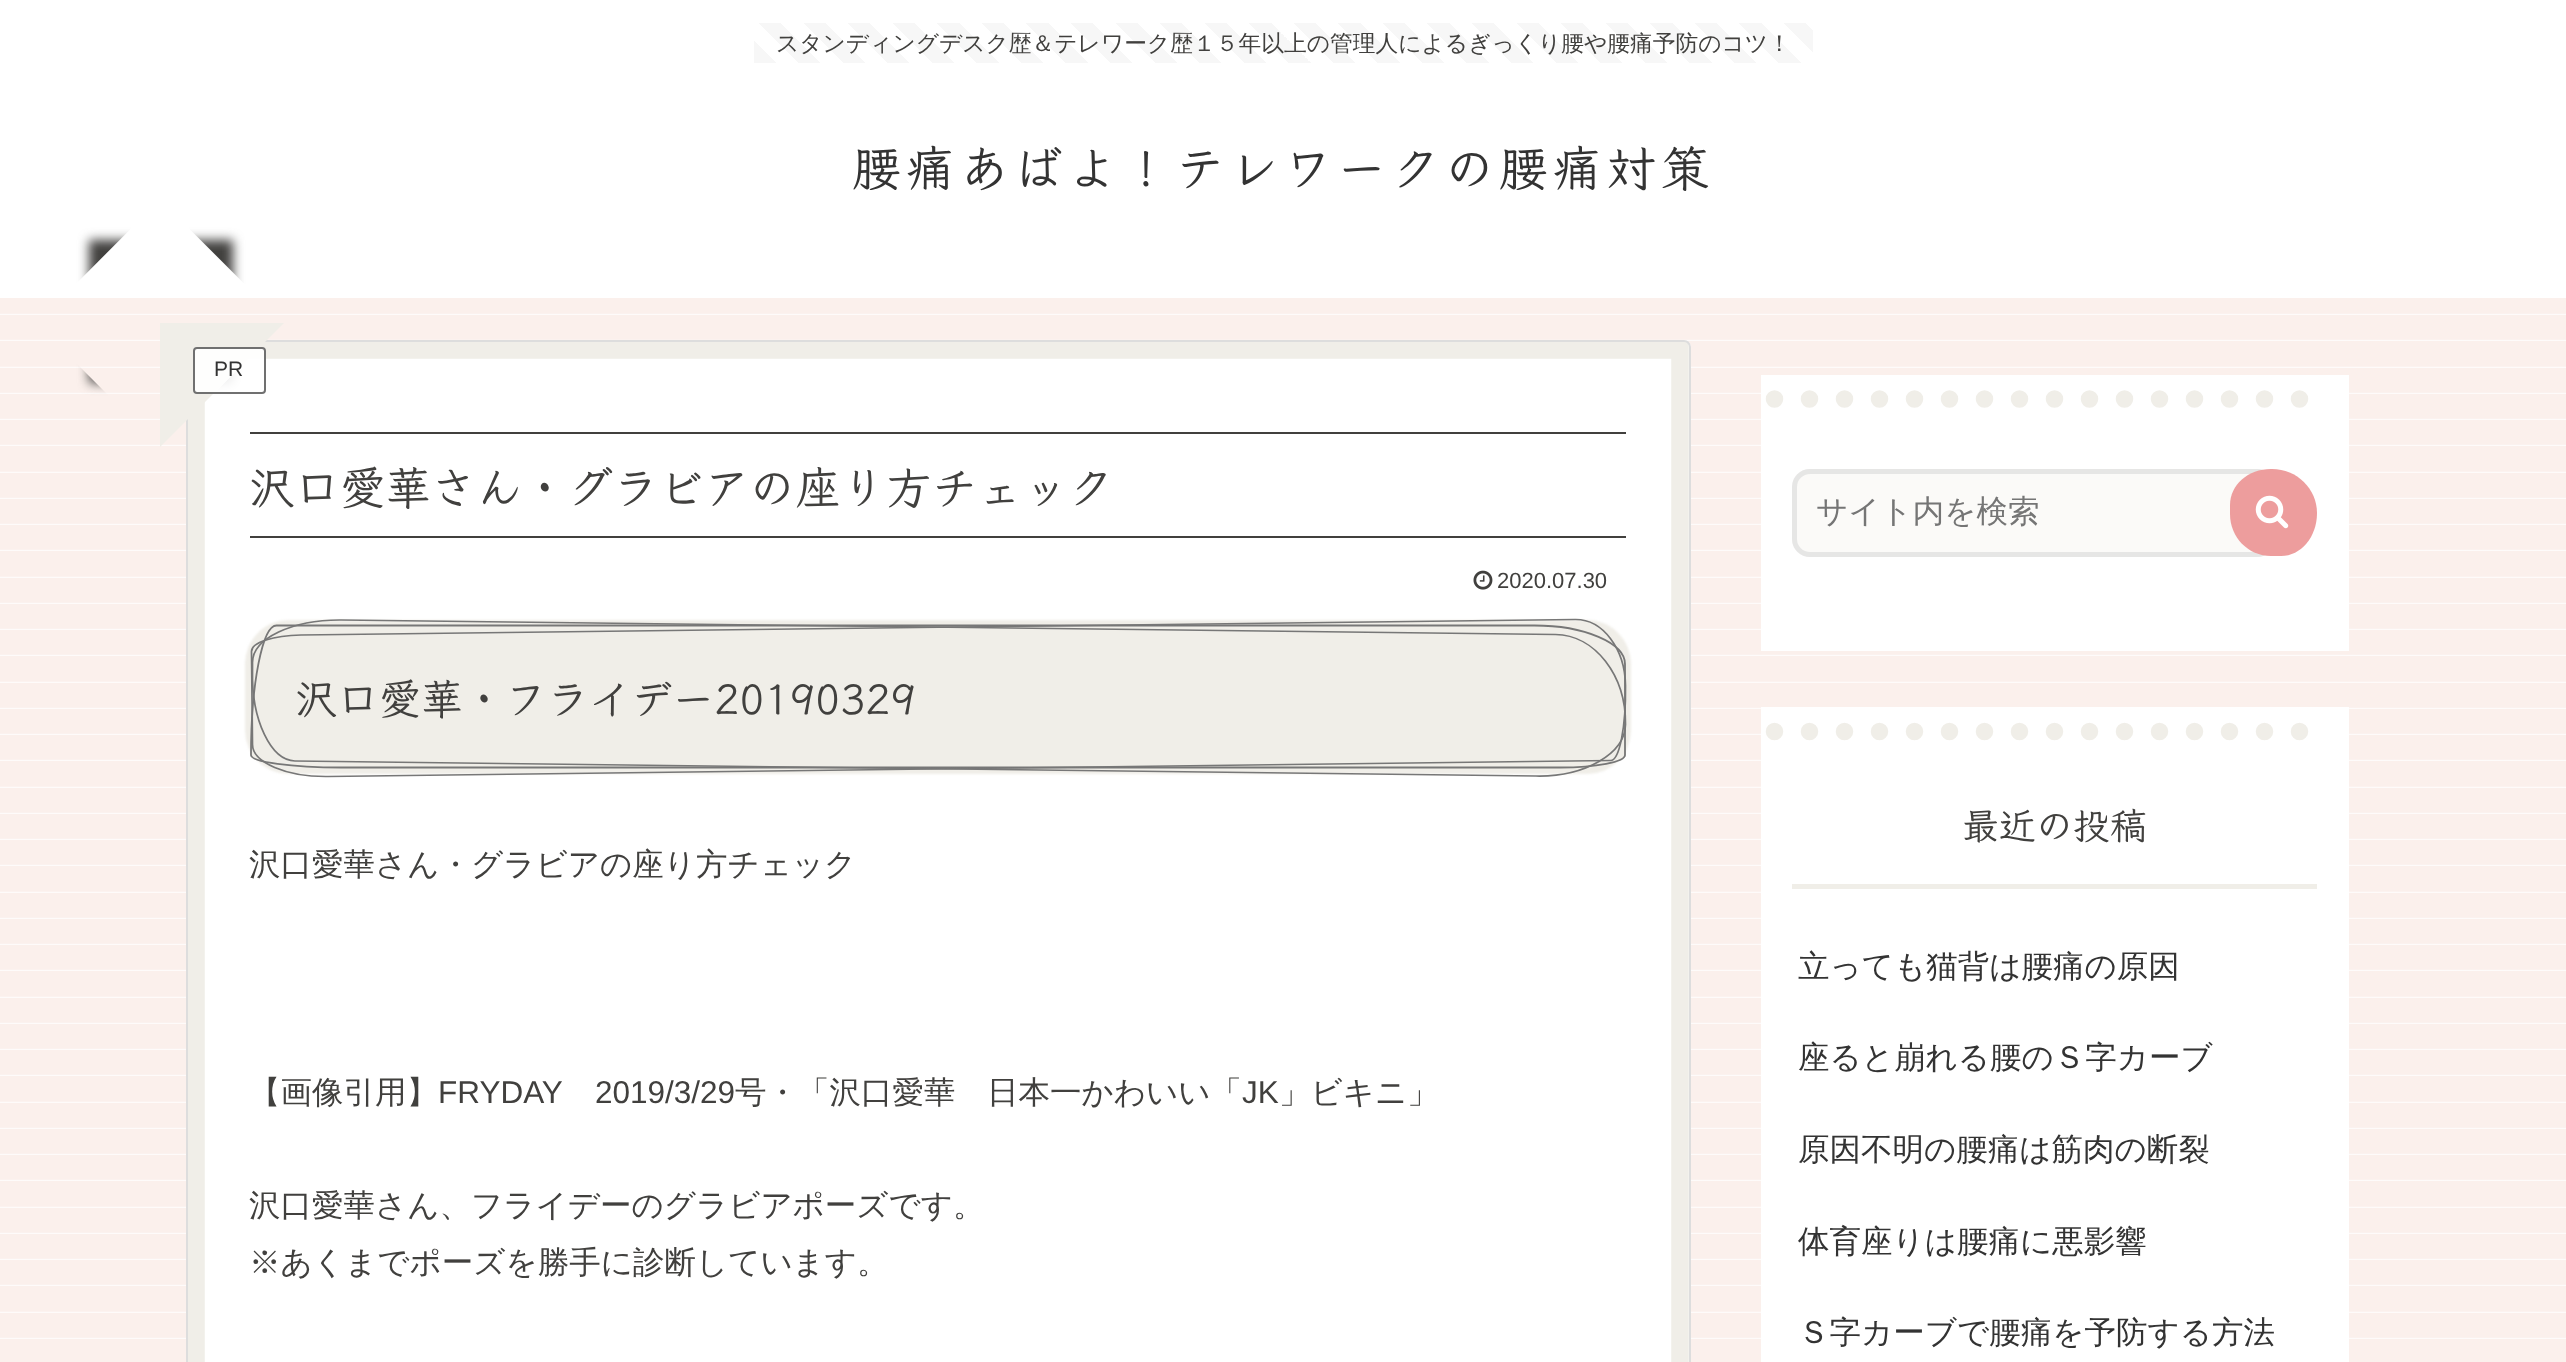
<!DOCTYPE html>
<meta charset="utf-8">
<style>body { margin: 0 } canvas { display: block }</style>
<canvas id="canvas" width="2566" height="1362"></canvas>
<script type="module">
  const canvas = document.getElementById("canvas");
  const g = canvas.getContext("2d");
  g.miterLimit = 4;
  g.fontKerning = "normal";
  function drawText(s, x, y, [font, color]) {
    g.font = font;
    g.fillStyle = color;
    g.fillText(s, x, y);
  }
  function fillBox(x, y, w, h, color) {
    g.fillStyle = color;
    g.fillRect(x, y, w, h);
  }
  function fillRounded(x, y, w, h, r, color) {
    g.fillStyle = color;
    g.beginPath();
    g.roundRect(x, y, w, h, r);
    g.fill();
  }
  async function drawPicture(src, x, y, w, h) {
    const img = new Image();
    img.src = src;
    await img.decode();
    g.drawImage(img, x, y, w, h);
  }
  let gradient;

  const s1 = ["500 22.75px WenQuanYi Zen Hei", "#41403E"];
  const s2 = ["600 49px Klee One", "#333333"];
  const s3 = ["21px Liberation Sans", "#333333"];
  const s4 = ["600 45.5px Klee One", "#41403E"];
  const s5 = ["22px Liberation Sans", "#41403E"];
  const s6 = ["600 42px Klee One", "#41403E"];
  const s7 = ["500 31.5px WenQuanYi Zen Hei", "#41403E"];
  const s8 = ["31.5px Liberation Sans", "#41403E"];
  const s9 = ["500 31.5px WenQuanYi Zen Hei", "#757575"];
  const s10 = ["600 37px Klee One", "#41403E"];
  const s11 = ["500 31.5px WenQuanYi Zen Hei", "#333333"];

  fillBox(0, 0, 2566, 1362, "#FBF0EC");
  await drawPicture("pic1.png", 0, 313, 2566, 1026);
  fillBox(0, 0, 2566, 298, "#FFFFFF");
  gradient = g.createLinearGradient(1009, 318, 1566, -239);
  gradient.addColorStop(0, "#F7F7F7");
  gradient.addColorStop(0.01, "#F7F7F7");
  gradient.addColorStop(0.01, "#FFFFFF");
  gradient.addColorStop(0.01, "#F7F7F7");
  gradient.addColorStop(0.02, "#F7F7F7");
  gradient.addColorStop(0.02, "#FFFFFF");
  gradient.addColorStop(0.03, "#FFFFFF");
  gradient.addColorStop(0.03, "#F7F7F7");
  gradient.addColorStop(0.03, "#FFFFFF");
  gradient.addColorStop(0.04, "#FFFFFF");
  gradient.addColorStop(0.04, "#F7F7F7");
  gradient.addColorStop(0.05, "#F7F7F7");
  gradient.addColorStop(0.05, "#FFFFFF");
  gradient.addColorStop(0.05, "#F7F7F7");
  gradient.addColorStop(0.06, "#F7F7F7");
  gradient.addColorStop(0.06, "#FFFFFF");
  gradient.addColorStop(0.07, "#FFFFFF");
  gradient.addColorStop(0.07, "#F7F7F7");
  gradient.addColorStop(0.07, "#FFFFFF");
  gradient.addColorStop(0.08, "#FFFFFF");
  gradient.addColorStop(0.08, "#F7F7F7");
  gradient.addColorStop(0.09, "#F7F7F7");
  gradient.addColorStop(0.09, "#FFFFFF");
  gradient.addColorStop(0.09, "#F7F7F7");
  gradient.addColorStop(0.1, "#F7F7F7");
  gradient.addColorStop(0.1, "#FFFFFF");
  gradient.addColorStop(0.11, "#FFFFFF");
  gradient.addColorStop(0.11, "#F7F7F7");
  gradient.addColorStop(0.11, "#FFFFFF");
  gradient.addColorStop(0.12, "#FFFFFF");
  gradient.addColorStop(0.12, "#F7F7F7");
  gradient.addColorStop(0.13, "#F7F7F7");
  gradient.addColorStop(0.13, "#FFFFFF");
  gradient.addColorStop(0.13, "#F7F7F7");
  gradient.addColorStop(0.14, "#F7F7F7");
  gradient.addColorStop(0.14, "#FFFFFF");
  gradient.addColorStop(0.15, "#FFFFFF");
  gradient.addColorStop(0.15, "#F7F7F7");
  gradient.addColorStop(0.15, "#FFFFFF");
  gradient.addColorStop(0.16, "#FFFFFF");
  gradient.addColorStop(0.16, "#F7F7F7");
  gradient.addColorStop(0.17, "#F7F7F7");
  gradient.addColorStop(0.17, "#FFFFFF");
  gradient.addColorStop(0.17, "#F7F7F7");
  gradient.addColorStop(0.18, "#F7F7F7");
  gradient.addColorStop(0.18, "#FFFFFF");
  gradient.addColorStop(0.19, "#FFFFFF");
  gradient.addColorStop(0.19, "#F7F7F7");
  gradient.addColorStop(0.19, "#FFFFFF");
  gradient.addColorStop(0.2, "#FFFFFF");
  gradient.addColorStop(0.2, "#F7F7F7");
  gradient.addColorStop(0.21, "#F7F7F7");
  gradient.addColorStop(0.21, "#FFFFFF");
  gradient.addColorStop(0.21, "#F7F7F7");
  gradient.addColorStop(0.22, "#F7F7F7");
  gradient.addColorStop(0.22, "#FFFFFF");
  gradient.addColorStop(0.23, "#FFFFFF");
  gradient.addColorStop(0.23, "#F7F7F7");
  gradient.addColorStop(0.23, "#FFFFFF");
  gradient.addColorStop(0.24, "#FFFFFF");
  gradient.addColorStop(0.24, "#F7F7F7");
  gradient.addColorStop(0.25, "#F7F7F7");
  gradient.addColorStop(0.25, "#FFFFFF");
  gradient.addColorStop(0.25, "#F7F7F7");
  gradient.addColorStop(0.26, "#F7F7F7");
  gradient.addColorStop(0.26, "#FFFFFF");
  gradient.addColorStop(0.27, "#FFFFFF");
  gradient.addColorStop(0.27, "#F7F7F7");
  gradient.addColorStop(0.27, "#FFFFFF");
  gradient.addColorStop(0.28, "#FFFFFF");
  gradient.addColorStop(0.28, "#F7F7F7");
  gradient.addColorStop(0.29, "#F7F7F7");
  gradient.addColorStop(0.29, "#FFFFFF");
  gradient.addColorStop(0.29, "#F7F7F7");
  gradient.addColorStop(0.3, "#F7F7F7");
  gradient.addColorStop(0.3, "#FFFFFF");
  gradient.addColorStop(0.31, "#FFFFFF");
  gradient.addColorStop(0.31, "#F7F7F7");
  gradient.addColorStop(0.31, "#FFFFFF");
  gradient.addColorStop(0.32, "#FFFFFF");
  gradient.addColorStop(0.32, "#F7F7F7");
  gradient.addColorStop(0.33, "#F7F7F7");
  gradient.addColorStop(0.33, "#FFFFFF");
  gradient.addColorStop(0.33, "#F7F7F7");
  gradient.addColorStop(0.34, "#F7F7F7");
  gradient.addColorStop(0.34, "#FFFFFF");
  gradient.addColorStop(0.35, "#FFFFFF");
  gradient.addColorStop(0.35, "#F7F7F7");
  gradient.addColorStop(0.35, "#FFFFFF");
  gradient.addColorStop(0.36, "#FFFFFF");
  gradient.addColorStop(0.36, "#F7F7F7");
  gradient.addColorStop(0.37, "#F7F7F7");
  gradient.addColorStop(0.37, "#FFFFFF");
  gradient.addColorStop(0.37, "#F7F7F7");
  gradient.addColorStop(0.38, "#F7F7F7");
  gradient.addColorStop(0.38, "#FFFFFF");
  gradient.addColorStop(0.39, "#FFFFFF");
  gradient.addColorStop(0.39, "#F7F7F7");
  gradient.addColorStop(0.39, "#FFFFFF");
  gradient.addColorStop(0.4, "#FFFFFF");
  gradient.addColorStop(0.4, "#F7F7F7");
  gradient.addColorStop(0.41, "#F7F7F7");
  gradient.addColorStop(0.41, "#FFFFFF");
  gradient.addColorStop(0.41, "#F7F7F7");
  gradient.addColorStop(0.42, "#F7F7F7");
  gradient.addColorStop(0.42, "#FFFFFF");
  gradient.addColorStop(0.43, "#FFFFFF");
  gradient.addColorStop(0.43, "#F7F7F7");
  gradient.addColorStop(0.43, "#FFFFFF");
  gradient.addColorStop(0.44, "#FFFFFF");
  gradient.addColorStop(0.44, "#F7F7F7");
  gradient.addColorStop(0.45, "#F7F7F7");
  gradient.addColorStop(0.45, "#FFFFFF");
  gradient.addColorStop(0.45, "#F7F7F7");
  gradient.addColorStop(0.46, "#F7F7F7");
  gradient.addColorStop(0.46, "#FFFFFF");
  gradient.addColorStop(0.47, "#FFFFFF");
  gradient.addColorStop(0.47, "#F7F7F7");
  gradient.addColorStop(0.47, "#FFFFFF");
  gradient.addColorStop(0.48, "#FFFFFF");
  gradient.addColorStop(0.48, "#F7F7F7");
  gradient.addColorStop(0.49, "#F7F7F7");
  gradient.addColorStop(0.49, "#FFFFFF");
  gradient.addColorStop(0.49, "#F7F7F7");
  gradient.addColorStop(0.5, "#F7F7F7");
  gradient.addColorStop(0.5, "#FFFFFF");
  gradient.addColorStop(0.51, "#FFFFFF");
  gradient.addColorStop(0.51, "#F7F7F7");
  gradient.addColorStop(0.51, "#FFFFFF");
  gradient.addColorStop(0.52, "#FFFFFF");
  gradient.addColorStop(0.52, "#F7F7F7");
  gradient.addColorStop(0.53, "#F7F7F7");
  gradient.addColorStop(0.53, "#FFFFFF");
  gradient.addColorStop(0.53, "#F7F7F7");
  gradient.addColorStop(0.54, "#F7F7F7");
  gradient.addColorStop(0.54, "#FFFFFF");
  gradient.addColorStop(0.55, "#FFFFFF");
  gradient.addColorStop(0.55, "#F7F7F7");
  gradient.addColorStop(0.55, "#FFFFFF");
  gradient.addColorStop(0.56, "#FFFFFF");
  gradient.addColorStop(0.56, "#F7F7F7");
  gradient.addColorStop(0.57, "#F7F7F7");
  gradient.addColorStop(0.57, "#FFFFFF");
  gradient.addColorStop(0.57, "#F7F7F7");
  gradient.addColorStop(0.58, "#F7F7F7");
  gradient.addColorStop(0.58, "#FFFFFF");
  gradient.addColorStop(0.59, "#FFFFFF");
  gradient.addColorStop(0.59, "#F7F7F7");
  gradient.addColorStop(0.59, "#FFFFFF");
  gradient.addColorStop(0.6, "#FFFFFF");
  gradient.addColorStop(0.6, "#F7F7F7");
  gradient.addColorStop(0.61, "#F7F7F7");
  gradient.addColorStop(0.61, "#FFFFFF");
  gradient.addColorStop(0.61, "#F7F7F7");
  gradient.addColorStop(0.62, "#F7F7F7");
  gradient.addColorStop(0.62, "#FFFFFF");
  gradient.addColorStop(0.63, "#FFFFFF");
  gradient.addColorStop(0.63, "#F7F7F7");
  gradient.addColorStop(0.63, "#FFFFFF");
  gradient.addColorStop(0.64, "#FFFFFF");
  gradient.addColorStop(0.64, "#F7F7F7");
  gradient.addColorStop(0.65, "#F7F7F7");
  gradient.addColorStop(0.65, "#FFFFFF");
  gradient.addColorStop(0.65, "#F7F7F7");
  gradient.addColorStop(0.66, "#F7F7F7");
  gradient.addColorStop(0.66, "#FFFFFF");
  gradient.addColorStop(0.67, "#FFFFFF");
  gradient.addColorStop(0.67, "#F7F7F7");
  gradient.addColorStop(0.67, "#FFFFFF");
  gradient.addColorStop(0.68, "#FFFFFF");
  gradient.addColorStop(0.68, "#F7F7F7");
  gradient.addColorStop(0.69, "#F7F7F7");
  gradient.addColorStop(0.69, "#FFFFFF");
  gradient.addColorStop(0.69, "#F7F7F7");
  gradient.addColorStop(0.7, "#F7F7F7");
  gradient.addColorStop(0.7, "#FFFFFF");
  gradient.addColorStop(0.71, "#FFFFFF");
  gradient.addColorStop(0.71, "#F7F7F7");
  gradient.addColorStop(0.71, "#FFFFFF");
  gradient.addColorStop(0.72, "#FFFFFF");
  gradient.addColorStop(0.72, "#F7F7F7");
  gradient.addColorStop(0.73, "#F7F7F7");
  gradient.addColorStop(0.73, "#FFFFFF");
  gradient.addColorStop(0.73, "#F7F7F7");
  gradient.addColorStop(0.74, "#F7F7F7");
  gradient.addColorStop(0.74, "#FFFFFF");
  gradient.addColorStop(0.75, "#FFFFFF");
  gradient.addColorStop(0.75, "#F7F7F7");
  gradient.addColorStop(0.75, "#FFFFFF");
  gradient.addColorStop(0.76, "#FFFFFF");
  gradient.addColorStop(0.76, "#F7F7F7");
  gradient.addColorStop(0.77, "#F7F7F7");
  gradient.addColorStop(0.77, "#FFFFFF");
  gradient.addColorStop(0.77, "#F7F7F7");
  gradient.addColorStop(0.78, "#F7F7F7");
  gradient.addColorStop(0.78, "#FFFFFF");
  gradient.addColorStop(0.79, "#FFFFFF");
  gradient.addColorStop(0.79, "#F7F7F7");
  gradient.addColorStop(0.79, "#FFFFFF");
  gradient.addColorStop(0.8, "#FFFFFF");
  gradient.addColorStop(0.8, "#F7F7F7");
  gradient.addColorStop(0.81, "#F7F7F7");
  gradient.addColorStop(0.81, "#FFFFFF");
  gradient.addColorStop(0.81, "#F7F7F7");
  gradient.addColorStop(0.82, "#F7F7F7");
  gradient.addColorStop(0.82, "#FFFFFF");
  gradient.addColorStop(0.83, "#FFFFFF");
  gradient.addColorStop(0.83, "#F7F7F7");
  gradient.addColorStop(0.83, "#FFFFFF");
  gradient.addColorStop(0.84, "#FFFFFF");
  gradient.addColorStop(0.84, "#F7F7F7");
  gradient.addColorStop(0.85, "#F7F7F7");
  gradient.addColorStop(0.85, "#FFFFFF");
  gradient.addColorStop(0.85, "#F7F7F7");
  gradient.addColorStop(0.86, "#F7F7F7");
  gradient.addColorStop(0.86, "#FFFFFF");
  gradient.addColorStop(0.87, "#FFFFFF");
  gradient.addColorStop(0.87, "#F7F7F7");
  gradient.addColorStop(0.87, "#FFFFFF");
  gradient.addColorStop(0.88, "#FFFFFF");
  gradient.addColorStop(0.88, "#F7F7F7");
  gradient.addColorStop(0.89, "#F7F7F7");
  gradient.addColorStop(0.89, "#FFFFFF");
  gradient.addColorStop(0.89, "#F7F7F7");
  gradient.addColorStop(0.9, "#F7F7F7");
  gradient.addColorStop(0.9, "#FFFFFF");
  gradient.addColorStop(0.91, "#FFFFFF");
  gradient.addColorStop(0.91, "#F7F7F7");
  gradient.addColorStop(0.91, "#FFFFFF");
  gradient.addColorStop(0.92, "#FFFFFF");
  gradient.addColorStop(0.92, "#F7F7F7");
  gradient.addColorStop(0.93, "#F7F7F7");
  gradient.addColorStop(0.93, "#FFFFFF");
  gradient.addColorStop(0.93, "#F7F7F7");
  gradient.addColorStop(0.94, "#F7F7F7");
  gradient.addColorStop(0.94, "#FFFFFF");
  gradient.addColorStop(0.95, "#FFFFFF");
  gradient.addColorStop(0.95, "#F7F7F7");
  gradient.addColorStop(0.95, "#FFFFFF");
  gradient.addColorStop(0.96, "#FFFFFF");
  gradient.addColorStop(0.96, "#F7F7F7");
  gradient.addColorStop(0.97, "#F7F7F7");
  gradient.addColorStop(0.97, "#FFFFFF");
  gradient.addColorStop(0.97, "#F7F7F7");
  gradient.addColorStop(0.98, "#F7F7F7");
  gradient.addColorStop(0.98, "#FFFFFF");
  gradient.addColorStop(0.99, "#FFFFFF");
  gradient.addColorStop(0.99, "#F7F7F7");
  gradient.addColorStop(0.99, "#FFFFFF");
  gradient.addColorStop(1, "#FFFFFF");
  g.fillStyle = gradient;
  g.fillRect(754, 23, 1059, 40);
  drawText("スタンディングデスク歴＆テレワーク歴１５年以上の管理人によるぎっくり腰や腰痛予防のコツ！", 776, 51, s1);
  g.letterSpacing = "4.9px";
  drawText("腰痛あばよ！テレワークの腰痛対策", 852, 186, s2);
  fillRounded(186, 340, 1505, 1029, 7, "#FFFFFF");
  g.beginPath();
  g.moveTo(196, 350);
  g.lineTo(1680, 350);
  g.lineTo(1680, 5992);
  g.lineTo(196, 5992);
  g.closePath();
  g.strokeStyle = "#F0EEE8";
  g.lineWidth = 17.5;
  g.stroke();
  g.beginPath();
  g.roundRect(187, 341, 1503, 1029, 6);
  g.strokeStyle = "#DDDDDD";
  g.lineWidth = 2;
  g.stroke();
  g.save();
  g.beginPath();
  g.moveTo(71, 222);
  g.lineTo(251, 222);
  g.lineTo(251, 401);
  g.lineTo(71, 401);
  g.closePath();
  g.moveTo(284, 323.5);
  g.lineTo(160, 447);
  g.lineTo(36.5, 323.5);
  g.lineTo(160, 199.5);
  g.closePath();
  g.clip("evenodd");
  g.fillStyle = "#41403E";
  g.filter = "blur(5.5px)";
  g.beginPath();
  g.rect(89, 240, 144, 143);
  g.fill();
  g.filter = "none";
  g.restore();
  fillBox(250, 432, 1376, 2, "#41403E");
  g.fillStyle = "#F0EEE8";
  g.beginPath();
  g.moveTo(284, 323);
  g.lineTo(160, 447);
  g.lineTo(160, 323);
  g.closePath();
  g.fill();
  fillRounded(193, 347, 73, 47, 4, "rgba(255, 255, 255, 0.9)");
  g.beginPath();
  g.roundRect(194, 348, 71, 45, 3);
  g.strokeStyle = "rgba(51, 51, 51, 0.7)";
  g.stroke();
  g.letterSpacing = "0px";
  drawText("PR", 214, 376, s3);
  fillBox(250, 536, 1376, 2, "#41403E");
  drawText("沢口愛華さん・グラビアの座り方チェック", 249, 504, s4);
  await drawPicture("pic2.png", 1473, 570, 20, 20);
  drawText("2020.07.30", 1497, 588, s5);
  g.fillStyle = "#F0EEE8";
  g.filter = "blur(1px)";
  g.beginPath();
  g.roundRect(245, 620, 1386, 154, 44);
  g.fill();
  g.filter = "none";
  g.beginPath();
  g.moveTo(276, 625);
  g.lineTo(1534, 625);
  g.bezierCurveTo(1585, 625, 1626, 642, 1626, 664);
  g.lineTo(1626, 755);
  g.bezierCurveTo(1626, 762, 1597, 768, 1561, 768);
  g.lineTo(342, 768);
  g.bezierCurveTo(291, 768, 250, 762, 250, 755);
  g.bezierCurveTo(250, 683, 262, 625, 276, 625);
  g.closePath();
  g.fill();
  g.beginPath();
  g.moveTo(276.5, 625.5);
  g.lineTo(1534.5, 625.5);
  g.bezierCurveTo(1584.5, 625.5, 1625, 643, 1625, 664);
  g.lineTo(1625, 755);
  g.bezierCurveTo(1625, 762, 1596, 767.5, 1560.5, 767.5);
  g.lineTo(341.5, 767.5);
  g.bezierCurveTo(291.5, 767.5, 251, 762, 251, 755);
  g.bezierCurveTo(251, 683.5, 262.5, 625.5, 276.5, 625.5);
  g.closePath();
  g.strokeStyle = "#777777";
  g.lineWidth = 1.8;
  g.stroke();
  drawText("沢口愛華・フライデー20190329", 295, 714, s6);
  g.beginPath();
  g.moveTo(301, 635);
  g.lineTo(1575, 619.5);
  g.bezierCurveTo(1602.5, 619, 1625, 648.5, 1625.5, 685.5);
  g.bezierCurveTo(1626, 727, 1619.5, 760.5, 1610.5, 760.5);
  g.lineTo(328, 776.5);
  g.bezierCurveTo(286.5, 777, 252.5, 762.5, 252.5, 744.5);
  g.lineTo(251.5, 651.5);
  g.bezierCurveTo(251.5, 642.5, 273.5, 635.5, 301, 635);
  g.closePath();
  g.lineWidth = 1.7;
  g.stroke();
  g.beginPath();
  g.moveTo(341.5, 620);
  g.lineTo(1555.5, 634.5);
  g.bezierCurveTo(1595, 635, 1626, 675.5, 1625.5, 724.5);
  g.bezierCurveTo(1625, 753.5, 1585, 777, 1536, 776);
  g.lineTo(295, 761);
  g.bezierCurveTo(271, 760.5, 251.5, 720.5, 252.5, 671.5);
  g.lineTo(252.5, 662.5);
  g.bezierCurveTo(252.5, 638.5, 292.5, 619.5, 341.5, 620);
  g.closePath();
  g.stroke();
  drawText("沢口愛華さん・グラビアの座り方チェック", 249, 875, s7);
  drawText("【画像引用】", 249, 1103, s7);
  drawText("FRYDAY", 438, 1103, s8);
  drawText("2019/3/29", 595, 1103, s8);
  drawText("号・「沢口愛華　日本一かわいい「", 735, 1103, s7);
  drawText("JK", 1242, 1103, s8);
  drawText("」ビキニ」", 1279, 1103, s7);
  drawText("沢口愛華さん、フライデーのグラビアポーズです。", 249, 1216, s7);
  drawText("※あくまでポーズを勝手に診断しています。", 249, 1273, s7);
  fillBox(1761, 375, 588, 276, "#FFFFFF");
  g.beginPath();
  g.moveTo(1774.5, 399);
  g.lineTo(2333, 399);
  g.strokeStyle = "#F0EEE8";
  g.lineWidth = 17.5;
  g.lineCap = "round";
  g.setLineDash([0, 35]);
  g.stroke();
  fillRounded(1792, 469, 483, 88, 18, "#FBFAF8");
  g.beginPath();
  g.roundRect(1794.5, 471.5, 478, 83, 15.5);
  g.strokeStyle = "rgba(221, 221, 221, 0.7)";
  g.lineWidth = 5;
  g.setLineDash([]);
  g.stroke();
  drawText("サイト内を検索", 1816, 522, s9);
  g.fillStyle = "#ED9D9D";
  g.beginPath();
  g.moveTo(2271, 469);
  g.lineTo(2272, 469);
  g.bezierCurveTo(2297, 469, 2317, 489, 2317, 513);
  g.bezierCurveTo(2317, 537, 2301, 556, 2281, 556);
  g.lineTo(2271, 556);
  g.bezierCurveTo(2248, 556, 2230, 537, 2230, 514);
  g.lineTo(2230, 505);
  g.bezierCurveTo(2230, 485, 2248, 469, 2271, 469);
  g.closePath();
  g.fill();
  await drawPicture("pic3.png", 2255, 495, 34, 34);
  fillBox(1761, 707, 588, 655, "#FFFFFF");
  g.beginPath();
  g.moveTo(1774.5, 731.5);
  g.lineTo(2333, 731.5);
  g.strokeStyle = "#F0EEE8";
  g.lineWidth = 17.5;
  g.setLineDash([0, 35]);
  g.stroke();
  fillBox(1792, 884, 525, 5, "#F0EEE8");
  drawText("最近の投稿", 1962, 839, s10);
  drawText("立っても猫背は腰痛の原因", 1798, 977, s11);
  drawText("座ると崩れる腰のＳ字カーブ", 1798, 1068, s11);
  drawText("原因不明の腰痛は筋肉の断裂", 1798, 1160, s11);
  drawText("体育座りは腰痛に悪影響", 1798, 1252, s11);
  drawText("Ｓ字カーブで腰痛を予防する方法", 1798, 1343, s11);
</script>
